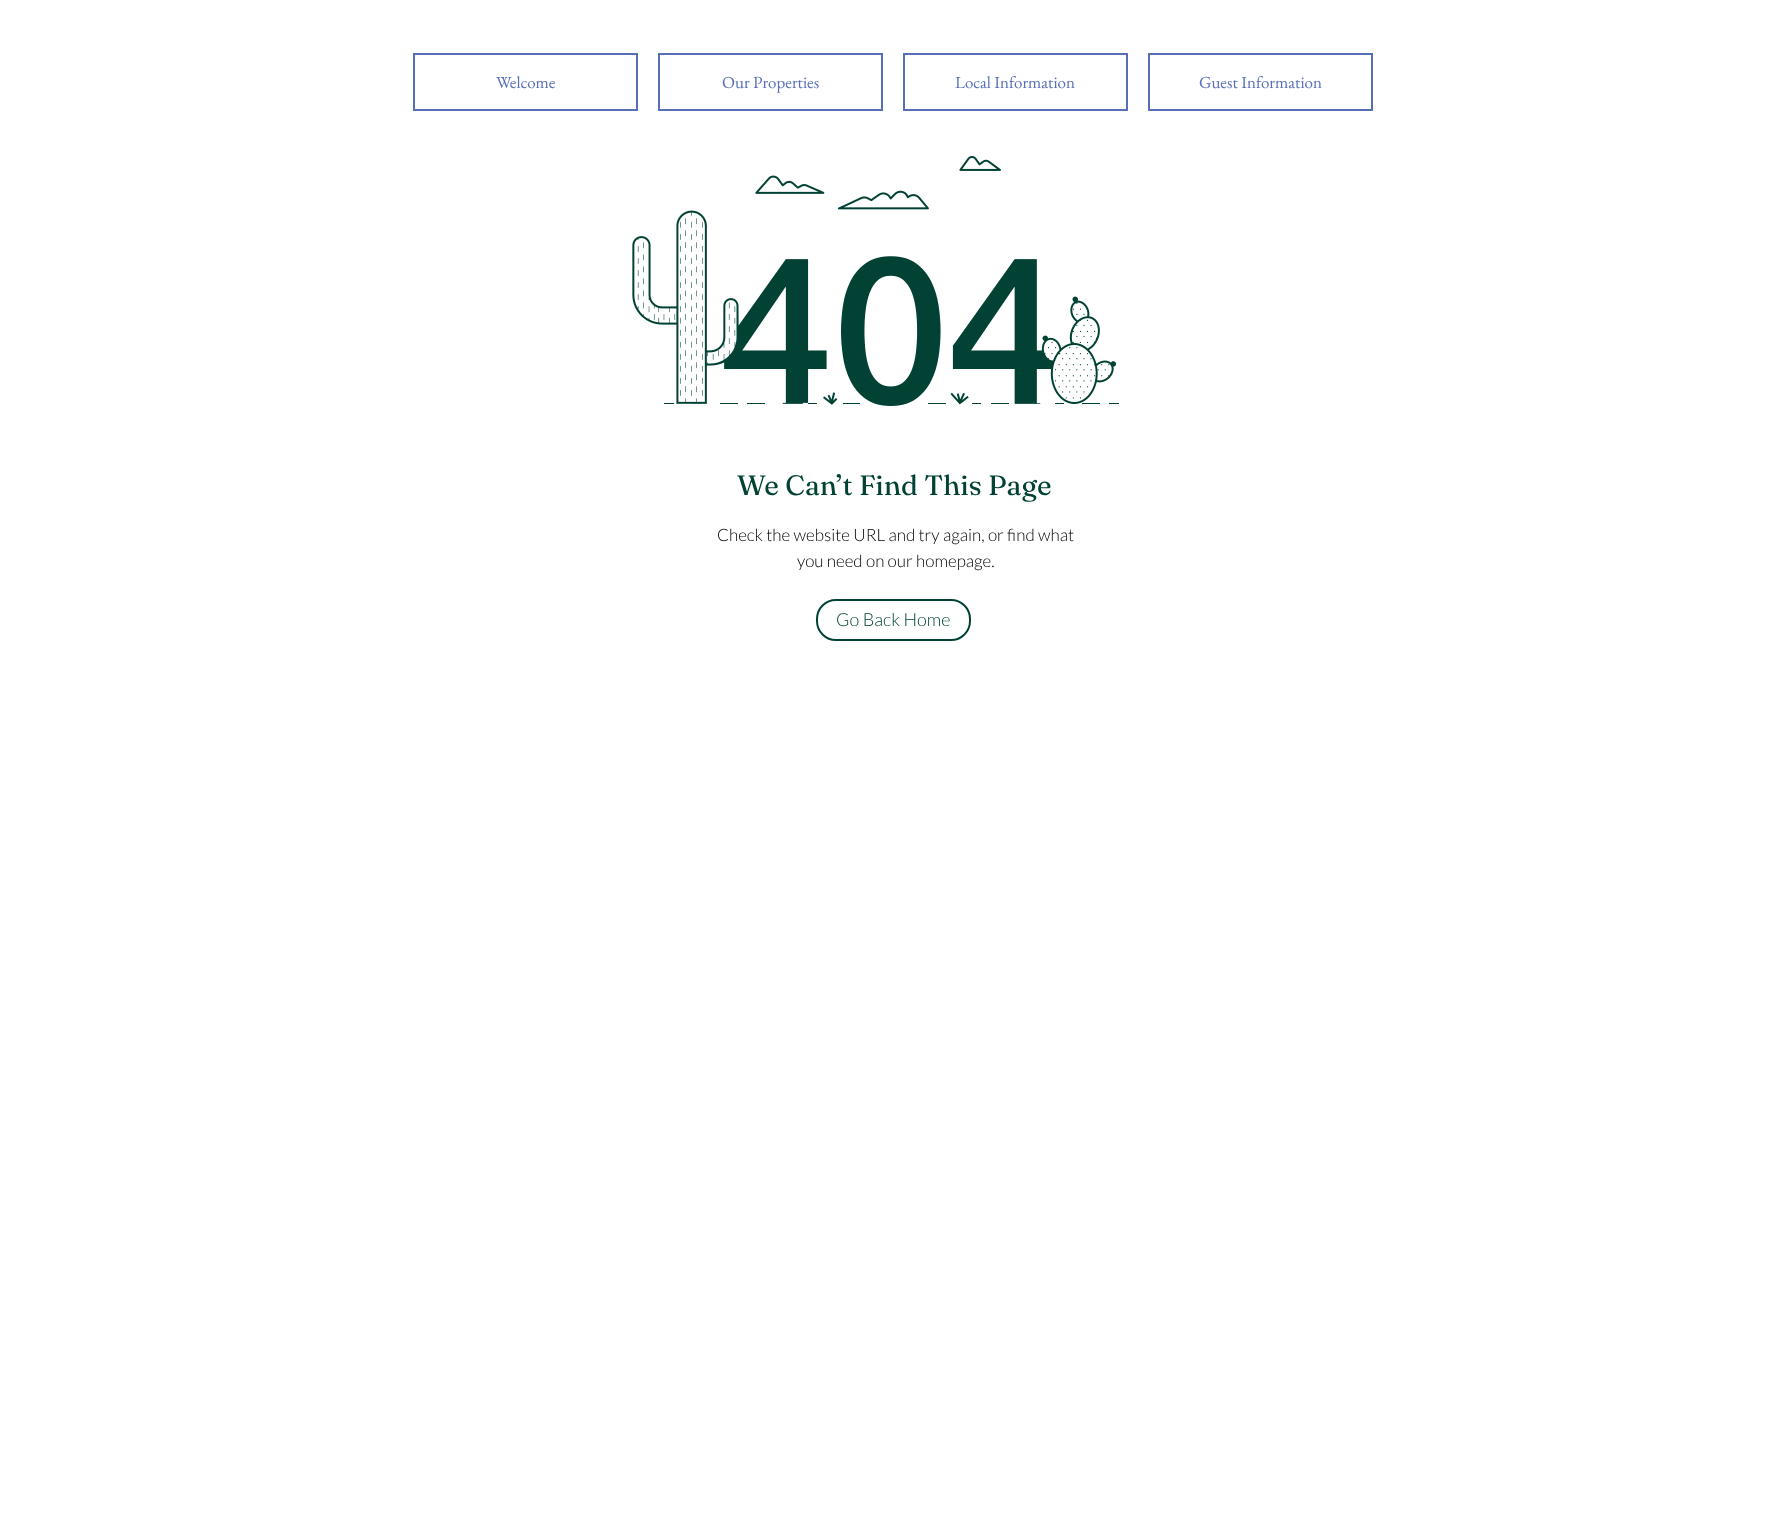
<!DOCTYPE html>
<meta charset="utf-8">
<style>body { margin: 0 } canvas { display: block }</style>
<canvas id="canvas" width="1786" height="1527"></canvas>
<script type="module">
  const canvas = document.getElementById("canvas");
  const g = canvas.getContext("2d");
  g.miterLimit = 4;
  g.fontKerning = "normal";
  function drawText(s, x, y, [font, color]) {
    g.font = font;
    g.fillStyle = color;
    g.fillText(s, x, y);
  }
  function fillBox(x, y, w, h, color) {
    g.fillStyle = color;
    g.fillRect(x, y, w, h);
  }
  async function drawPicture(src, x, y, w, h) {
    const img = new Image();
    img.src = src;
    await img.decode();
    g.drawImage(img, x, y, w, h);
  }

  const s1 = ["17px EB Garamond", "#566FB8"];
  const s2 = ["28px Fraunces", "#014235"];
  const s3 = ["300 17px Lato", "#000000"];
  const s4 = ["300 18px Lato", "#014235"];

  fillBox(0, 0, 1786, 1527, "#FFFFFF");
  g.strokeStyle = "#566FB8";
  g.lineWidth = 2;
  g.strokeRect(414, 54, 223, 56);
  drawText("Welcome", 496, 88, s1);
  g.strokeRect(659, 54, 223, 56);
  drawText("Our Properties", 722, 88, s1);
  g.strokeRect(904, 54, 223, 56);
  drawText("Local Information", 955, 88, s1);
  g.strokeRect(1149, 54, 223, 56);
  drawText("Guest Information", 1199, 88, s1);
  await drawPicture("pic1.png", 632, 156, 487, 250);
  drawText("We Can’t Find This Page", 737, 495, s2);
  drawText("Check the website URL and try again, or find what", 717, 541, s3);
  drawText("you need on our homepage.", 797, 567, s3);
  g.beginPath();
  g.roundRect(817, 600, 153, 40, 19);
  g.strokeStyle = "#014235";
  g.stroke();
  drawText("Go Back Home", 836, 626, s4);
</script>
